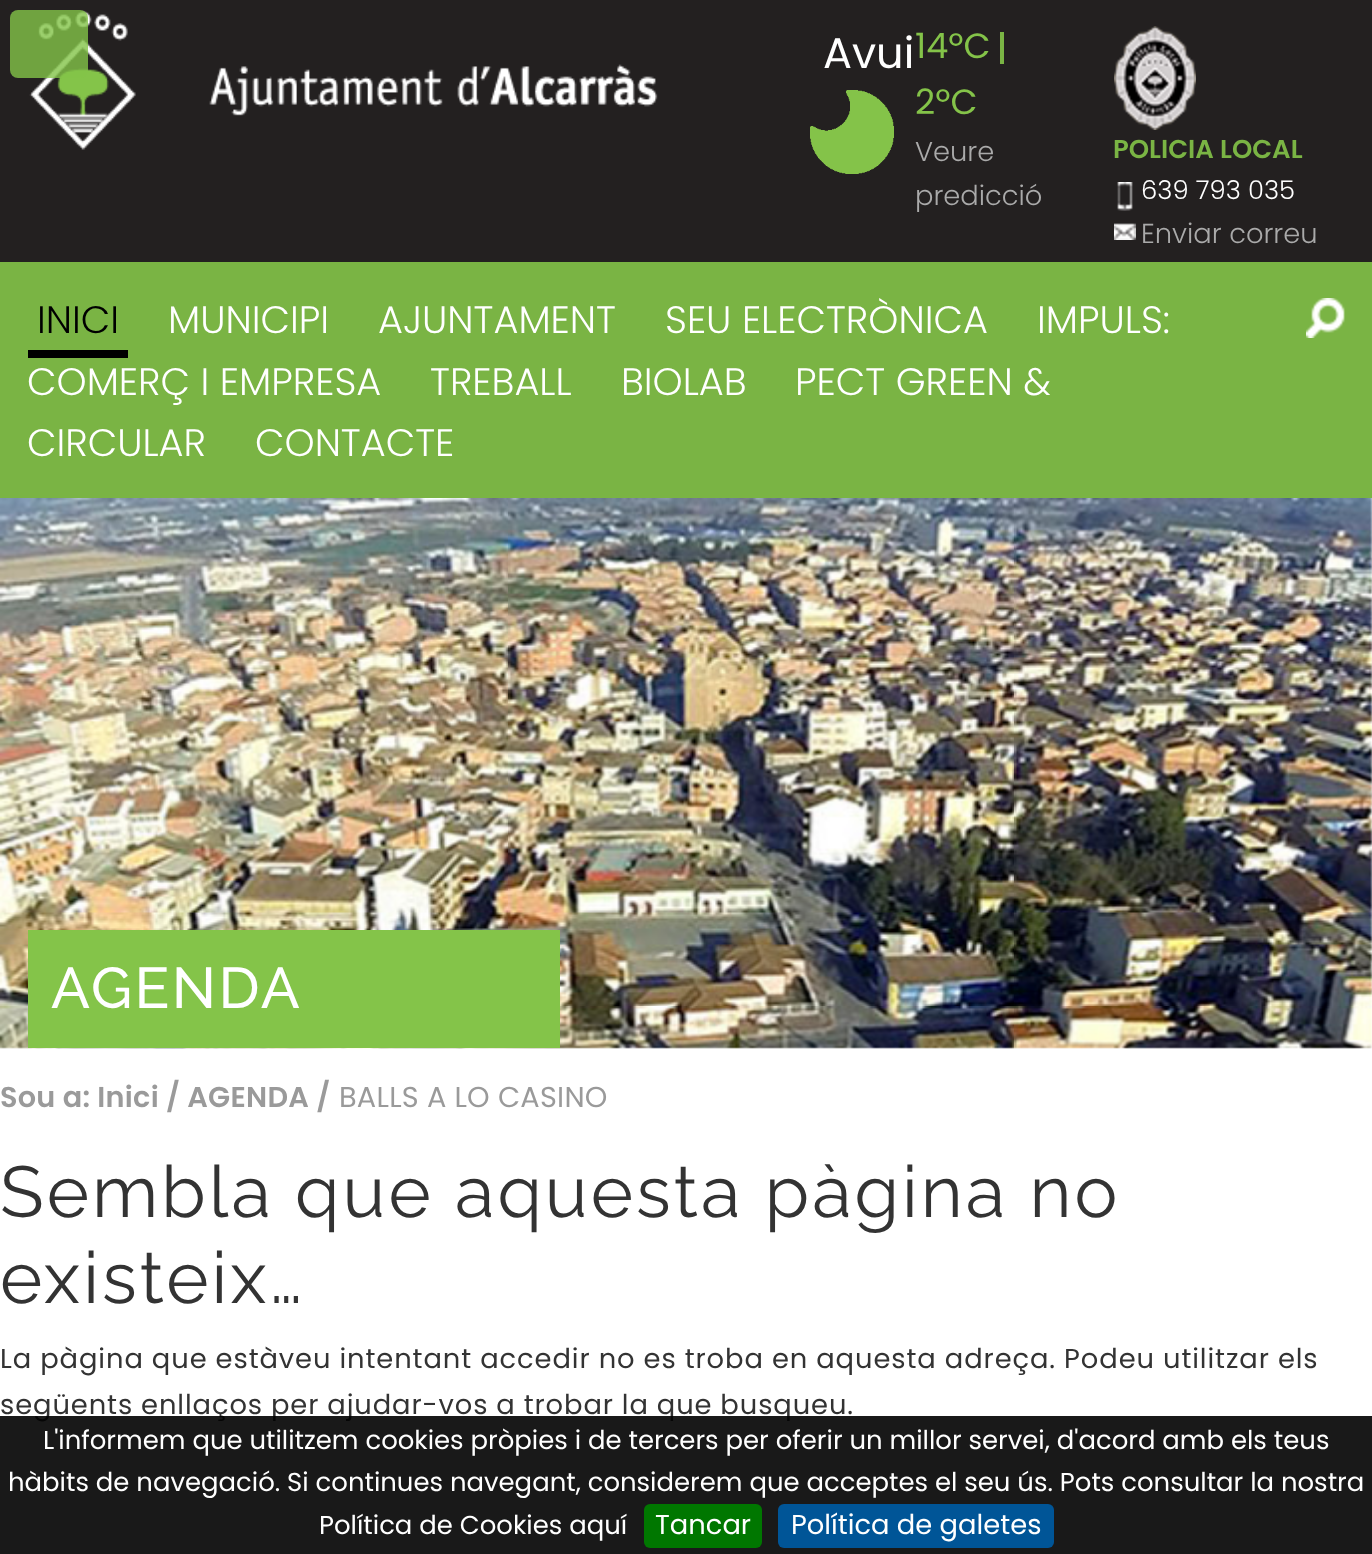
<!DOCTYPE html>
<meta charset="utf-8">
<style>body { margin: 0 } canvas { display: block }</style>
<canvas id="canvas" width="1372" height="1554"></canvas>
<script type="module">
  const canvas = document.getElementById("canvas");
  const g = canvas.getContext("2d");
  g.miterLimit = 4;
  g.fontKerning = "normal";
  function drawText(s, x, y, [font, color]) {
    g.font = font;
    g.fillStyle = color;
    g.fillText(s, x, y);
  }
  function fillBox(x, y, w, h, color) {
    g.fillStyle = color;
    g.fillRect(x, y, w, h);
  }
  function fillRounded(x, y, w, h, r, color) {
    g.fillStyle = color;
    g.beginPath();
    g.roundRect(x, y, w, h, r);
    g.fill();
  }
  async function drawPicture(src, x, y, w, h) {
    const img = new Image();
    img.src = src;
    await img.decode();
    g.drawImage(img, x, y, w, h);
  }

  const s1 = ["43px Poppins", "#FFFFFF"];
  const s2 = ["35px Poppins", "#84C349"];
  const s3 = ["300 27.35px Poppins", "#AAAAAA"];
  const s4 = ["600 25.92px Poppins", "#7AB444"];
  const s5 = ["300 25.92px Poppins", "#FFFFFF"];
  const s6 = ["300 38.25px Poppins", "#000000"];
  const s7 = ["300 38.25px Poppins", "#FFFFFF"];
  const s8 = ["500 57.5px Raleway", "#FFFFFF"];
  const s9 = ["600 28.75px Poppins", "#9A9A9A"];
  const s10 = ["28.75px Poppins", "#9A9A9A"];
  const s11 = ["72px Raleway", "#333333"];
  const s12 = ["27.35px Poppins", "#333333"];
  const s13 = ["25.92px Poppins", "#FFFFFF"];
  const s14 = ["27.35px Poppins", "#FFFFFF"];

  fillBox(0, 0, 1372, 1554, "#FFFFFF");
  fillBox(0, 0, 1372, 262, "#232020");
  await drawPicture("pic1.png", 29, 10, 629, 140);
  fillRounded(10, 10, 78, 68, 8, "rgba(131, 196, 72, 0.8)");
  drawText("Avui", 823, 68, s1);
  await drawPicture("pic2.png", 810, 90, 84, 84);
  drawText("14ºC", 915, 58, s2);
  fillBox(1000, 32, 4, 32, "#7AB444");
  drawText("2ºC", 915, 114, s2);
  drawText("Veure", 915, 161, s3);
  drawText("predicció", 915, 205, s3);
  await drawPicture("pic3.png", 1114, 26, 82, 104);
  drawText("POLICIA LOCAL", 1113, 158, s4);
  await drawPicture("pic4.png", 1117, 182, 16, 29);
  drawText("639 793 035", 1141, 199, s5);
  await drawPicture("pic5.png", 1114, 223, 22, 17);
  drawText("Enviar correu", 1141, 243, s3);
  fillBox(0, 262, 1372, 236, "#7AB444");
  drawText("INICI", 37, 333, s6);
  fillBox(28, 350, 100, 8, "#000000");
  drawText("MUNICIPI", 168, 333, s7);
  drawText("AJUNTAMENT", 378, 333, s7);
  drawText("SEU ELECTRÒNICA", 665, 333, s7);
  drawText("IMPULS:", 1037, 333, s7);
  drawText("COMERÇ I EMPRESA", 27, 395, s7);
  drawText("TREBALL", 430, 395, s7);
  drawText("BIOLAB", 621, 395, s7);
  drawText("PECT GREEN &", 795, 395, s7);
  drawText("CIRCULAR", 27, 456, s7);
  drawText("CONTACTE", 255, 456, s7);
  await drawPicture("pic6.png", 1306, 298, 39, 40);
  await drawPicture("pic7.png", 0, 498, 1372, 551);
  fillBox(28, 930, 532, 118, "#84C449");
  g.letterSpacing = "2.5px";
  drawText("AGENDA", 51, 1008, s8);
  g.letterSpacing = "0.25px";
  drawText("Sou a: Inici / AGENDA /", 0, 1107, s9);
  drawText("BALLS A LO CASINO", 339, 1107, s10);
  g.letterSpacing = "3.05px";
  drawText("Sembla que aquesta pàgina no", 0, 1217, s11);
  drawText("existeix…", 0, 1303, s11);
  g.letterSpacing = "0.9px";
  g.wordSpacing = "-0.1px";
  drawText("La pàgina que estàveu intentant accedir no es troba en aquesta adreça. Podeu utilitzar els", 0, 1368, s12);
  g.wordSpacing = "-0.25px";
  drawText("següents enllaços per ajudar-vos a trobar la que busqueu.", 0, 1414, s12);
  fillBox(0, 1416, 1372, 138, "rgba(0, 0, 0, 0.9)");
  g.letterSpacing = "0px";
  g.wordSpacing = "0px";
  drawText("L'informem que utilitzem cookies pròpies i de tercers per oferir un millor servei, d'acord amb els teus", 43, 1449, s13);
  drawText("hàbits de navegació. Si continues navegant, considerem que acceptes el seu ús. Pots consultar la nostra", 8, 1491, s13);
  drawText("Política de Cookies aquí", 319, 1534, s13);
  fillRounded(644, 1504, 118, 44, 6, "#007700");
  drawText("Tancar", 655, 1534, s14);
  fillRounded(778, 1504, 276, 44, 6, "#005597");
  drawText("Política de galetes", 791, 1534, s14);
</script>
